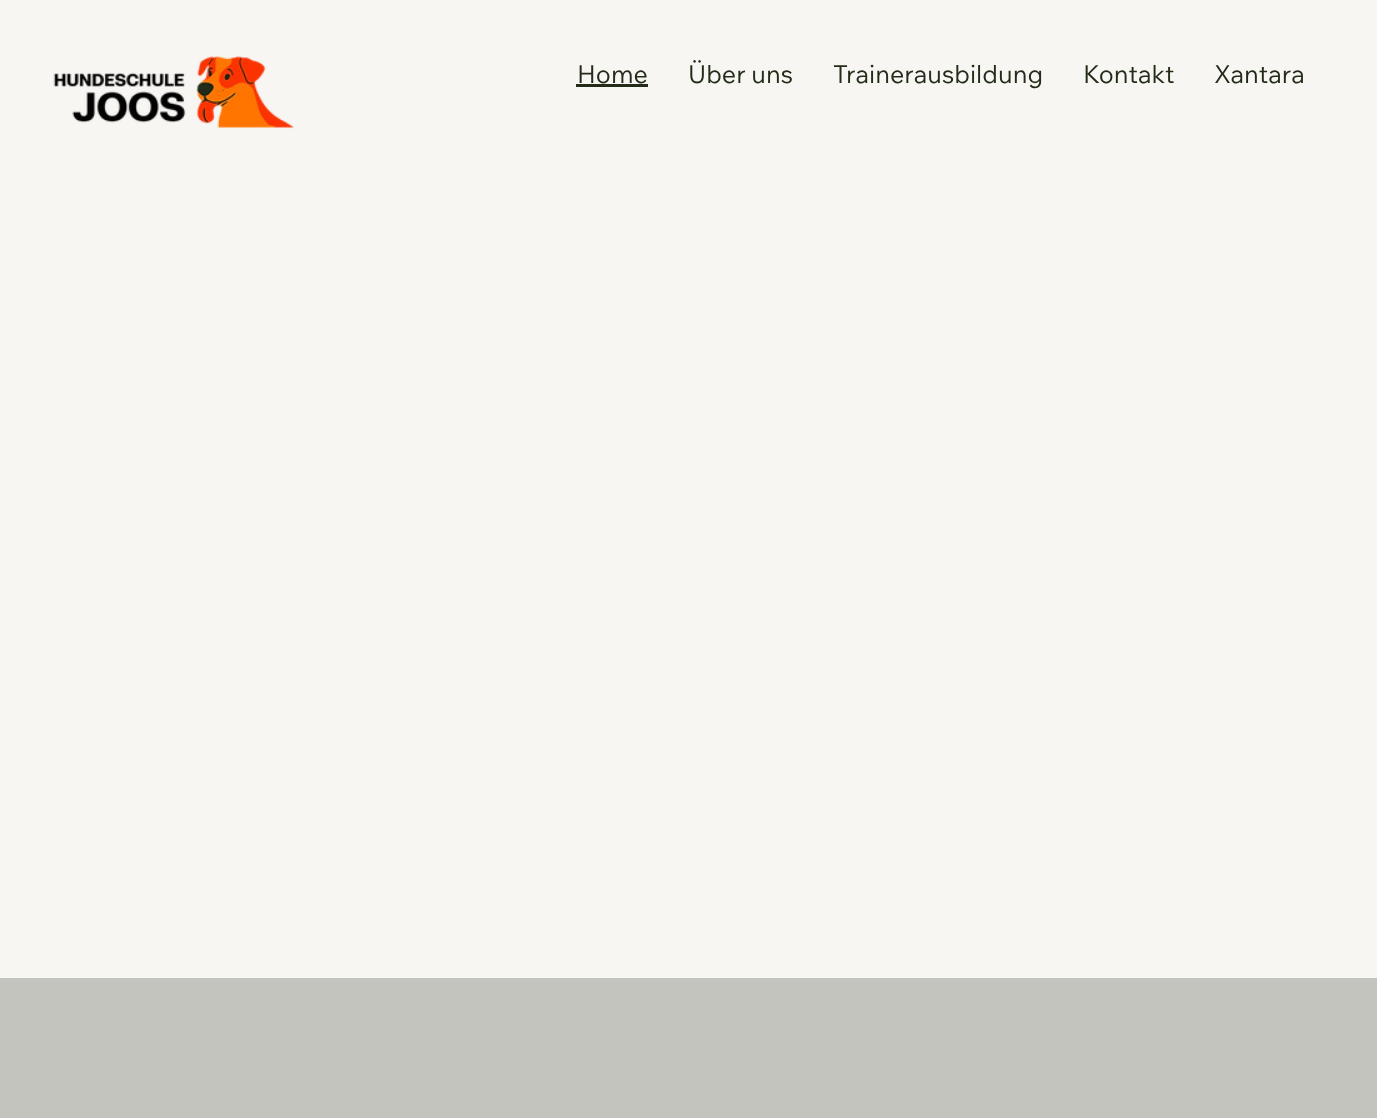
<!DOCTYPE html>
<meta charset="utf-8">
<style>body { margin: 0 } canvas { display: block }</style>
<canvas id="canvas" width="1377" height="1118"></canvas>
<script type="module">
  const canvas = document.getElementById("canvas");
  const g = canvas.getContext("2d");
  g.miterLimit = 4;
  g.fontKerning = "normal";
  function drawText(s, x, y, [font, color]) {
    g.font = font;
    g.fillStyle = color;
    g.fillText(s, x, y);
  }
  function fillBox(x, y, w, h, color) {
    g.fillStyle = color;
    g.fillRect(x, y, w, h);
  }
  async function drawPicture(src, x, y, w, h) {
    const img = new Image();
    img.src = src;
    await img.decode();
    g.drawImage(img, x, y, w, h);
  }

  const s1 = ["25px Wix Madefor Text", "#232C19"];

  fillBox(0, 0, 1377, 1118, "#F8F6F3");
  await drawPicture("pic1.png", 53, 56, 241, 73);
  drawText("Home", 577, 83, s1);
  fillBox(576, 84, 72, 3, "#232C19");
  drawText("Über uns", 688, 83, s1);
  drawText("Trainerausbildung", 833, 83, s1);
  drawText("Kontakt", 1083, 83, s1);
  drawText("Xantara", 1214, 83, s1);
  fillBox(0, 978, 1377, 140, "#C3C4BD");
</script>
